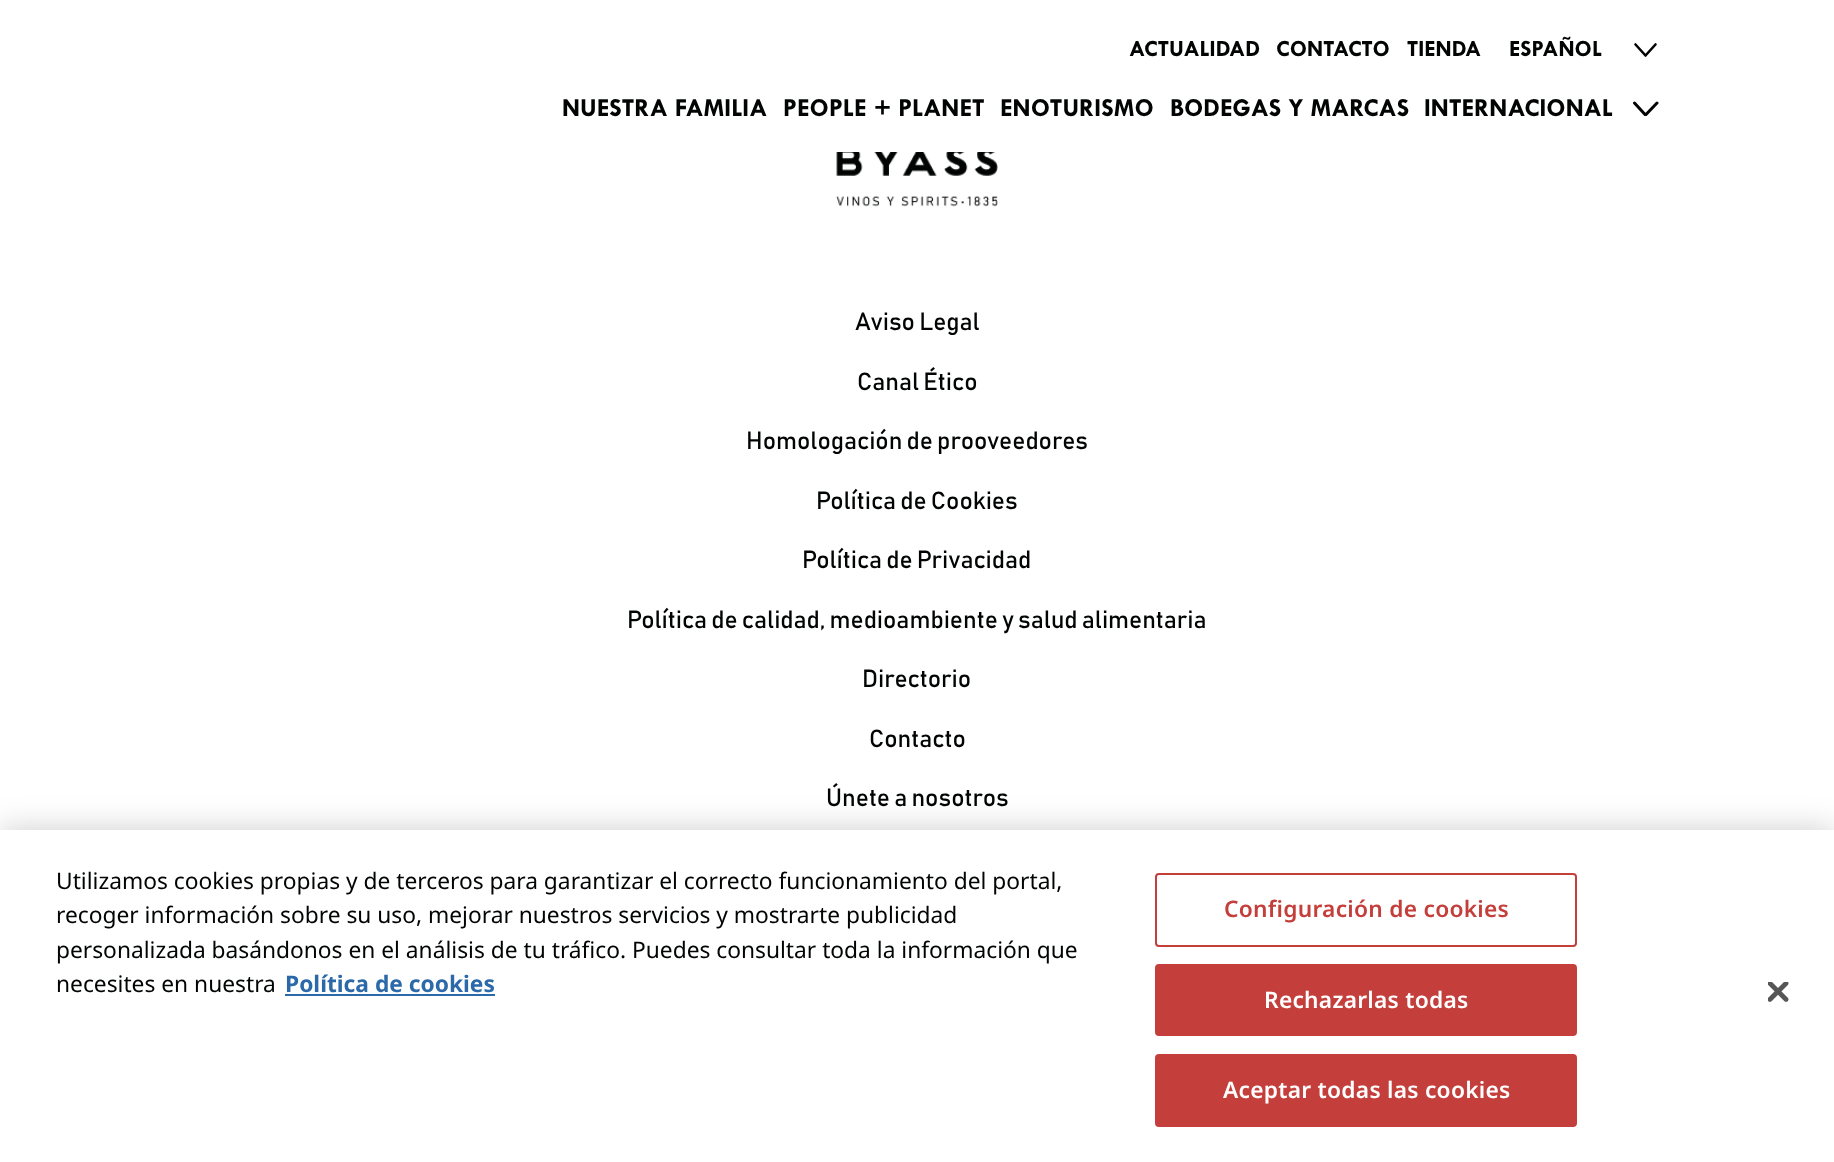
<!DOCTYPE html>
<meta charset="utf-8">
<style>body { margin: 0 } canvas { display: block }</style>
<canvas id="canvas" width="1834" height="1162"></canvas>
<script type="module">
  const canvas = document.getElementById("canvas");
  const g = canvas.getContext("2d");
  g.miterLimit = 4;
  g.fontKerning = "normal";
  function drawText(s, x, y, [font, color]) {
    g.font = font;
    g.fillStyle = color;
    g.fillText(s, x, y);
  }
  function fillBox(x, y, w, h, color) {
    g.fillStyle = color;
    g.fillRect(x, y, w, h);
  }
  async function drawPicture(src, x, y, w, h) {
    const img = new Image();
    img.src = src;
    await img.decode();
    g.drawImage(img, x, y, w, h);
  }

  const s1 = ["bold 23.5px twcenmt", "#020404"];
  const s2 = ["bold 26.25px twcenmt", "#020404"];
  const s3 = ["24.5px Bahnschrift", "#020404"];
  const s4 = ["22.75px Noto Sans", "#020404"];
  const s5 = ["bold 22.75px Noto Sans", "#2B69A9"];
  const s6 = ["600 22.75px Noto Sans", "#C43F3B"];
  const s7 = ["600 22.75px Noto Sans", "#FFFFFF"];

  fillBox(0, 0, 1834, 1162, "#FFFFFF");
  drawText("ACTUALIDAD", 1129, 56, s1);
  drawText("CONTACTO", 1276, 56, s1);
  drawText("TIENDA", 1407, 56, s1);
  drawText("ESPAÑOL", 1509, 56, s1);
  g.beginPath();
  g.moveTo(1635.5, 44.5);
  g.lineTo(1645.5, 55.5);
  g.lineTo(1655.5, 44.5);
  g.strokeStyle = "#020404";
  g.lineWidth = 2.6;
  g.lineCap = "round";
  g.lineJoin = "round";
  g.stroke();
  drawText("NUESTRA FAMILIA", 562, 116, s2);
  drawText("PEOPLE + PLANET", 783, 116, s2);
  drawText("ENOTURISMO", 1000, 116, s2);
  drawText("BODEGAS Y MARCAS", 1170, 116, s2);
  drawText("INTERNACIONAL", 1424, 116, s2);
  g.save();
  g.beginPath();
  g.rect(1631, 100, 28, 16);
  g.clip();
  g.beginPath();
  g.moveTo(1634.5, 103);
  g.lineTo(1645.5, 115);
  g.lineTo(1657, 103);
  g.lineWidth = 3;
  g.stroke();
  g.restore();
  await drawPicture("pic1.png", 836, 152, 162, 55);
  drawText("Aviso Legal", 855, 330, s3);
  drawText("Canal Ético", 857, 390, s3);
  drawText("Homologación de prooveedores", 746, 449, s3);
  drawText("Política de Cookies", 816, 509, s3);
  drawText("Política de Privacidad", 802, 568, s3);
  drawText("Política de calidad, medioambiente y salud alimentaria", 627, 628, s3);
  drawText("Directorio", 862, 687, s3);
  drawText("Contacto", 869, 747, s3);
  drawText("Únete a nosotros", 826, 806, s3);
  g.fillStyle = "rgba(0, 0, 0, 0.2)";
  g.filter = "blur(16px)";
  g.beginPath();
  g.rect(0, 830, 1834, 332);
  g.fill();
  g.filter = "none";
  fillBox(0, 830, 1834, 332, "#FFFFFF");
  drawText("Utilizamos cookies propias y de terceros para garantizar el correcto funcionamiento del portal,", 56, 889, s4);
  drawText("recoger información sobre su uso, mejorar nuestros servicios y mostrarte publicidad", 56, 923, s4);
  drawText("personalizada basándonos en el análisis de tu tráfico. Puedes consultar toda la información que", 56, 958, s4);
  drawText("necesites en nuestra", 56, 992, s4);
  drawText("Política de cookies", 285, 992, s5);
  fillBox(285, 994, 210, 2, "#2B69A9");
  g.beginPath();
  g.roundRect(1156, 874, 420, 72, 3);
  g.strokeStyle = "#C43F3B";
  g.lineWidth = 2;
  g.lineJoin = "miter";
  g.stroke();
  g.letterSpacing = "0.25px";
  drawText("Configuración de cookies", 1224, 917, s6);
  g.beginPath();
  g.roundRect(1156, 965, 420, 70, 3);
  g.fill();
  g.stroke();
  drawText("Rechazarlas todas", 1264, 1008, s7);
  g.fillStyle = "#C43F3B";
  g.beginPath();
  g.roundRect(1156, 1055, 420, 71, 3);
  g.fill();
  g.stroke();
  drawText("Aceptar todas las cookies", 1223, 1098, s7);
  await drawPicture("pic2.png", 1768, 982, 21, 20);
</script>
